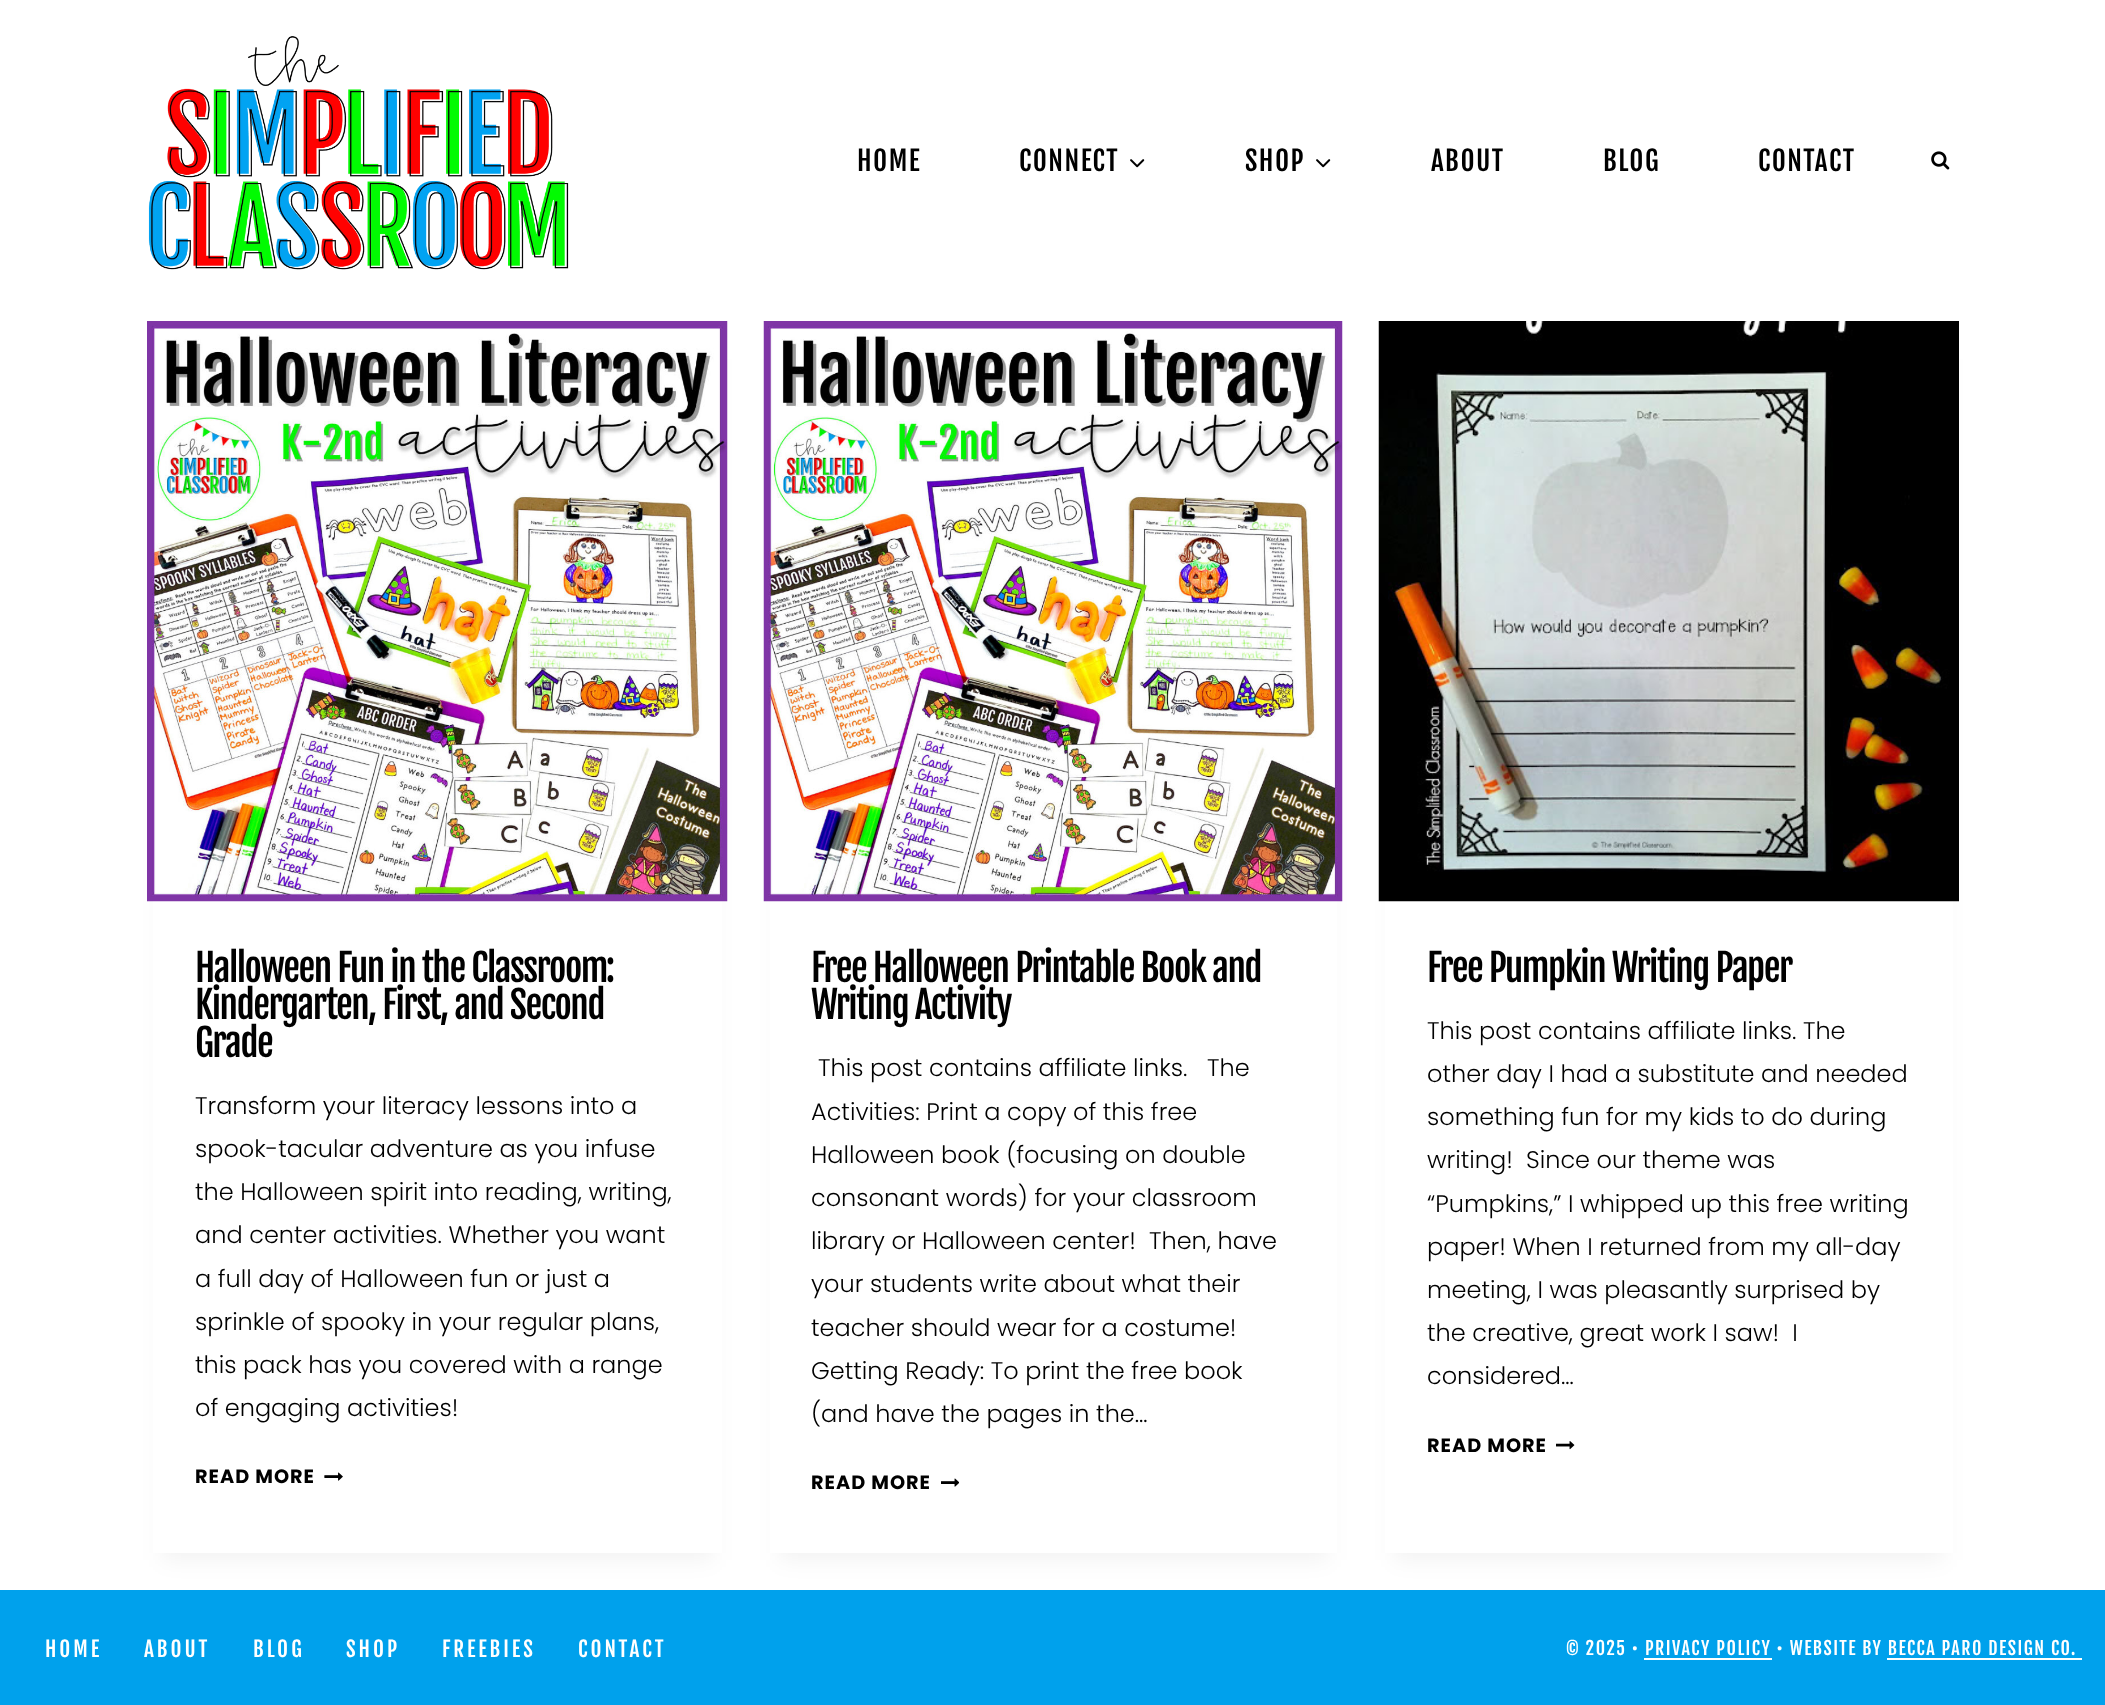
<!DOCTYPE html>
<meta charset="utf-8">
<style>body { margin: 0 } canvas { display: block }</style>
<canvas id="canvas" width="2105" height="1705"></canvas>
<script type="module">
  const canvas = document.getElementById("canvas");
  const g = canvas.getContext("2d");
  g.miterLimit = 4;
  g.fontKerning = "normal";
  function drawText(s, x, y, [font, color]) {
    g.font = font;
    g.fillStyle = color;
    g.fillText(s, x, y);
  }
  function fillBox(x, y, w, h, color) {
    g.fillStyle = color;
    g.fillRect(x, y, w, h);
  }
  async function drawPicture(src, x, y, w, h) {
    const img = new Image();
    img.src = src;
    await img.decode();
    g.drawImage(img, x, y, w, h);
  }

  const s1 = ["27px Fjalla One", "#000000"];
  const s2 = ["37.5px Fjalla One", "#000000"];
  const s3 = ["300 24px Poppins", "#000000"];
  const s4 = ["bold 19.25px Poppins", "#000000"];
  const s5 = ["21px Fjalla One", "#FFFFFF"];
  const s6 = ["18px Fjalla One", "#FFFFFF"];

  fillBox(0, 0, 2105, 1705, "#FFFFFF");
  await drawPicture("pic1.png", 148, 36, 421, 234);
  g.letterSpacing = "1.5px";
  drawText("HOME", 857, 171, s1);
  drawText("CONNECT", 1019, 171, s1);
  await drawPicture("pic2.png", 1130, 159, 15, 9);
  drawText("SHOP", 1245, 171, s1);
  await drawPicture("pic2.png", 1316, 159, 15, 9);
  drawText("ABOUT", 1431, 171, s1);
  drawText("BLOG", 1603, 171, s1);
  drawText("CONTACT", 1758, 171, s1);
  await drawPicture("pic3.png", 1931, 151, 19, 19);
  fillBox(0, 1590, 2105, 115, "#00A1EC");
  g.fillStyle = "rgba(0, 0, 0, 0.05)";
  g.filter = "blur(11px)";
  g.beginPath();
  g.rect(162, 359, 551, 1201);
  g.fill();
  g.filter = "none";
  fillBox(153, 350, 569, 1203, "#FFFFFF");
  await drawPicture("pic4.png", 147, 321, 581, 581);
  g.letterSpacing = "-1.5px";
  drawText("Halloween Fun in the Classroom:", 195, 982, s2);
  drawText("Kindergarten, First, and Second", 195, 1019, s2);
  drawText("Grade", 195, 1057, s2);
  g.letterSpacing = "0px";
  drawText("Transform your literacy lessons into a", 195, 1114, s3);
  drawText("spook-tacular adventure as you infuse", 195, 1157, s3);
  drawText("the Halloween spirit into reading, writing,", 195, 1200, s3);
  drawText("and center activities. Whether you want", 195, 1243, s3);
  drawText("a full day of Halloween fun or just a", 195, 1287, s3);
  drawText("sprinkle of spooky in your regular plans,", 195, 1330, s3);
  drawText("this pack has you covered with a range", 195, 1373, s3);
  drawText("of engaging activities!", 195, 1416, s3);
  g.letterSpacing = "1px";
  drawText("READ MORE", 195, 1483, s4);
  await drawPicture("pic5.png", 324, 1472, 19, 9);
  g.fillStyle = "rgba(0, 0, 0, 0.05)";
  g.filter = "blur(11px)";
  g.beginPath();
  g.rect(779, 359, 549, 1201);
  g.fill();
  g.filter = "none";
  fillBox(770, 350, 567, 1203, "#FFFFFF");
  await drawPicture("pic6.png", 763, 321, 580, 581);
  g.letterSpacing = "-1.5px";
  drawText("Free Halloween Printable Book and", 811, 982, s2);
  drawText("Writing Activity", 811, 1019, s2);
  g.letterSpacing = "0px";
  drawText("This post contains affiliate links.   The", 818, 1076, s3);
  drawText("Activities: Print a copy of this free", 811, 1120, s3);
  drawText("Halloween book (focusing on double", 811, 1163, s3);
  drawText("consonant words) for your classroom", 811, 1206, s3);
  drawText("library or Halloween center!  Then, have", 811, 1249, s3);
  drawText("your students write about what their", 811, 1292, s3);
  drawText("teacher should wear for a costume!", 811, 1336, s3);
  drawText("Getting Ready: To print the free book", 811, 1379, s3);
  drawText("(and have the pages in the…", 811, 1422, s3);
  g.letterSpacing = "1px";
  drawText("READ MORE", 811, 1489, s4);
  await drawPicture("pic7.png", 941, 1478, 18, 9);
  g.fillStyle = "rgba(0, 0, 0, 0.05)";
  g.filter = "blur(11px)";
  g.beginPath();
  g.rect(1394, 359, 550, 1201);
  g.fill();
  g.filter = "none";
  fillBox(1385, 901, 568, 652, "#FFFFFF");
  await drawPicture("pic8.png", 1378, 321, 581, 581);
  g.letterSpacing = "-1.5px";
  drawText("Free Pumpkin Writing Paper", 1427, 982, s2);
  g.letterSpacing = "0px";
  drawText("This post contains affiliate links. The", 1427, 1039, s3);
  drawText("other day I had a substitute and needed", 1427, 1082, s3);
  drawText("something fun for my kids to do during", 1427, 1125, s3);
  drawText("writing!  Since our theme was", 1427, 1168, s3);
  drawText("“Pumpkins,” I whipped up this free writing", 1427, 1212, s3);
  drawText("paper! When I returned from my all-day", 1427, 1255, s3);
  drawText("meeting, I was pleasantly surprised by", 1427, 1298, s3);
  drawText("the creative, great work I saw!  I", 1427, 1341, s3);
  drawText("considered…", 1427, 1384, s3);
  g.letterSpacing = "1px";
  drawText("READ MORE", 1427, 1452, s4);
  await drawPicture("pic9.png", 1556, 1441, 19, 9);
  g.letterSpacing = "3px";
  drawText("HOME", 45, 1657, s5);
  drawText("ABOUT", 144, 1657, s5);
  drawText("BLOG", 253, 1657, s5);
  drawText("SHOP", 346, 1657, s5);
  drawText("FREEBIES", 442, 1657, s5);
  drawText("CONTACT", 578, 1657, s5);
  g.letterSpacing = "1.5px";
  drawText("© 2025 • PRIVACY POLICY • WEBSITE BY BECCA PARO DESIGN CO.", 1566, 1655, s6);
  fillBox(1644, 1658, 128, 2, "#FFFFFF");
  fillBox(1887, 1658, 195, 2, "#FFFFFF");
</script>
